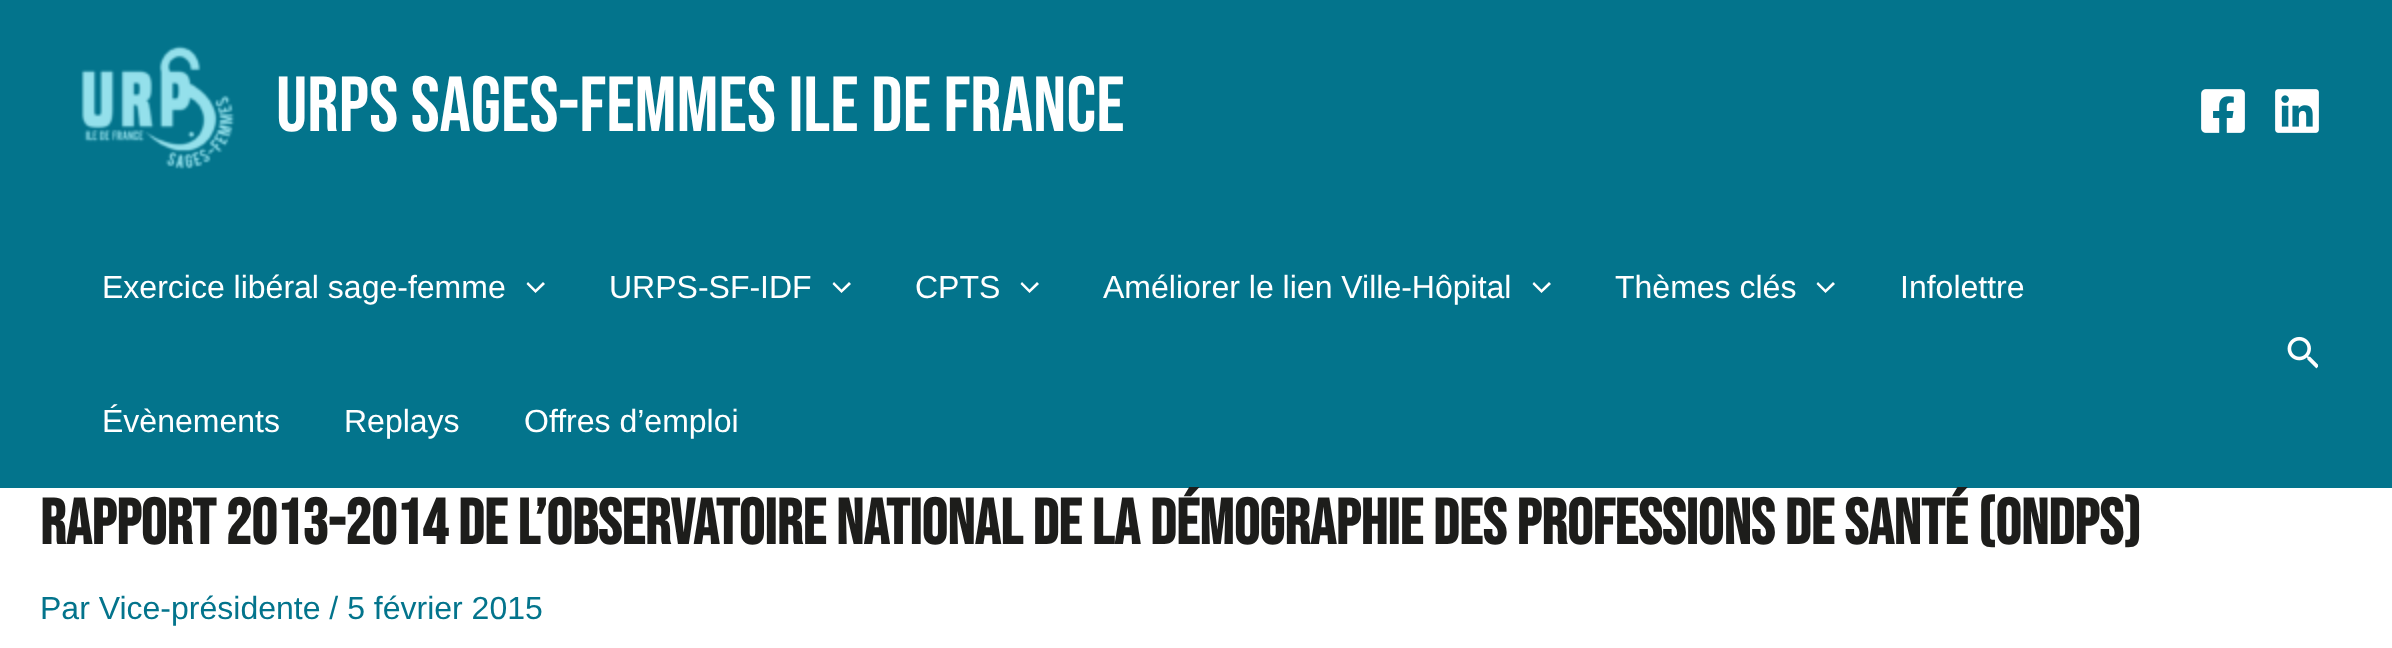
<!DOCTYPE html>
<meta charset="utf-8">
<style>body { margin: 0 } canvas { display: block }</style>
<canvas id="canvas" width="2392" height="648"></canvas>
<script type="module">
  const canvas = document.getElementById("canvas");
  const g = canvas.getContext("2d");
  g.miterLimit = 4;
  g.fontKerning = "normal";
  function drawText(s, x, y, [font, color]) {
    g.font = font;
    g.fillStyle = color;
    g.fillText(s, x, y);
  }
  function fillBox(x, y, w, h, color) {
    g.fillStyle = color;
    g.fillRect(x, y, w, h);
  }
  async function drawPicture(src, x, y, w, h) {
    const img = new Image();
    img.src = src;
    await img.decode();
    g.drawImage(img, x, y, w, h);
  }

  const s1 = ["78px Bebas Neue", "#FFFFFF"];
  const s2 = ["32px Liberation Sans", "#FFFFFF"];
  const s3 = ["bold 64px Bebas Neue", "#1D1D1B"];
  const s4 = ["32px Liberation Sans", "#03748C"];

  fillBox(0, 0, 2392, 648, "#FFFFFF");
  fillBox(0, 0, 2392, 488, "#03748C");
  await drawPicture("pic1.png", 81, 45, 154, 125);
  drawText("URPS Sages-Femmes Ile de France", 276, 131, s1);
  await drawPicture("pic2.png", 2201, 89, 44, 44);
  await drawPicture("pic3.png", 2275, 89, 44, 44);
  drawText("Exercice libéral sage-femme", 102, 298, s2);
  g.beginPath();
  g.moveTo(526.5, 284);
  g.lineTo(535.5, 293);
  g.lineTo(545, 284);
  g.lineTo(543, 282);
  g.lineTo(535.5, 289.5);
  g.lineTo(528, 282);
  g.closePath();
  g.fill();
  drawText("URPS-SF-IDF", 609, 298, s2);
  g.beginPath();
  g.moveTo(832.5, 284);
  g.lineTo(841.5, 293);
  g.lineTo(851, 284);
  g.lineTo(849, 282);
  g.lineTo(841.5, 289.5);
  g.lineTo(834, 282);
  g.closePath();
  g.fill();
  drawText("CPTS", 915, 298, s2);
  g.beginPath();
  g.moveTo(1020.5, 284);
  g.lineTo(1029.5, 293);
  g.lineTo(1039, 284);
  g.lineTo(1037, 282);
  g.lineTo(1029.5, 289.5);
  g.lineTo(1022, 282);
  g.closePath();
  g.fill();
  drawText("Améliorer le lien Ville-Hôpital", 1103, 298, s2);
  g.beginPath();
  g.moveTo(1532.5, 284);
  g.lineTo(1541.5, 293);
  g.lineTo(1551, 284);
  g.lineTo(1549, 282);
  g.lineTo(1541.5, 289.5);
  g.lineTo(1534, 282);
  g.closePath();
  g.fill();
  drawText("Thèmes clés", 1615, 298, s2);
  g.beginPath();
  g.moveTo(1816.5, 284);
  g.lineTo(1825.5, 293);
  g.lineTo(1835, 284);
  g.lineTo(1833, 282);
  g.lineTo(1825.5, 289.5);
  g.lineTo(1818, 282);
  g.closePath();
  g.fill();
  drawText("Infolettre", 1900, 298, s2);
  drawText("Évènements", 102, 432, s2);
  drawText("Replays", 344, 432, s2);
  drawText("Offres d’emploi", 524, 432, s2);
  await drawPicture("pic4.png", 2287, 336, 31, 33);
  drawText("Rapport 2013-2014 de l’observatoire national de la démographie des professions de santé (ONDPS)", 40, 544, s3);
  drawText("Par Vice-présidente / 5 février 2015", 40, 619, s4);
</script>
